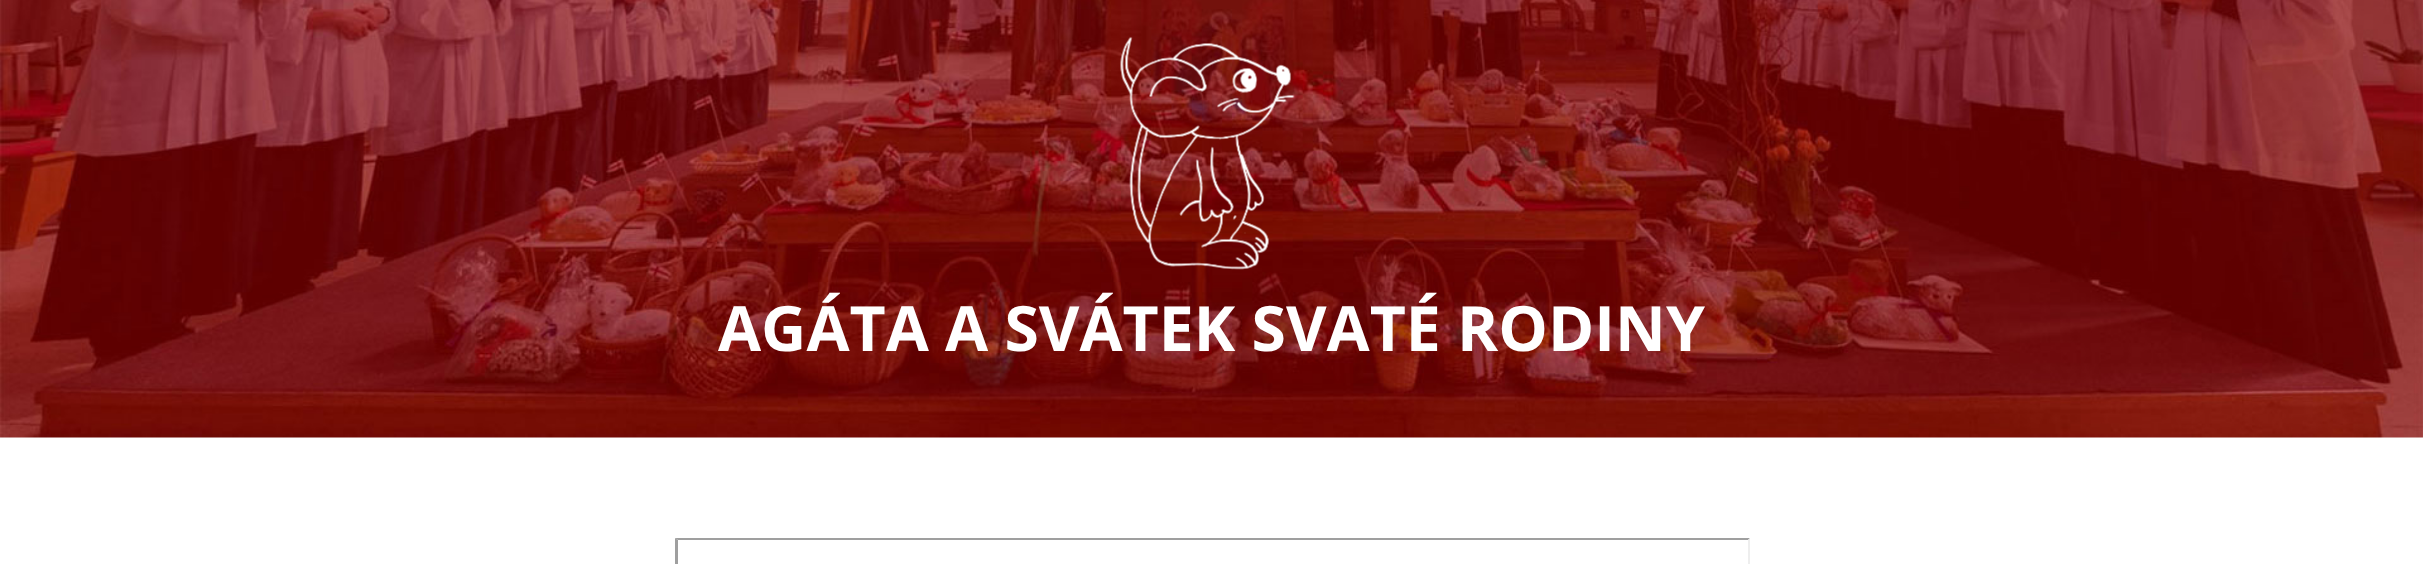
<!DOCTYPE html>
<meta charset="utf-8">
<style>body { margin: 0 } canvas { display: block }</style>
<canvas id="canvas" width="2423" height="564"></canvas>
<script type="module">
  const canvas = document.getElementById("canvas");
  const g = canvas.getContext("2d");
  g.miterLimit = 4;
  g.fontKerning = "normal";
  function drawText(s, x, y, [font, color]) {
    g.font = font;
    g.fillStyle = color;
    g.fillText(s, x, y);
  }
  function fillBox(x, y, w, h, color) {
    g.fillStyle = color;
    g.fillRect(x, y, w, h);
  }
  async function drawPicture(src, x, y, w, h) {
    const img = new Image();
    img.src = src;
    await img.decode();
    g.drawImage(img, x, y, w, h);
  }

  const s1 = ["bold 62.5px Open Sans", "#FFFFFF"];

  fillBox(0, 0, 2423, 564, "#FFFFFF");
  await drawPicture("pic1.png", 0, 0, 2423, 438);
  await drawPicture("pic2.png", 1120, 37, 175, 233);
  drawText("AGÁTA A SVÁTEK SVATÉ RODINY", 718, 351, s1);
  g.fillStyle = "#9F9F9F";
  g.beginPath();
  g.moveTo(675, 538);
  g.lineTo(1750, 538);
  g.lineTo(1748, 540);
  g.lineTo(678, 540);
  g.closePath();
  g.fill();
  g.beginPath();
  g.moveTo(675, 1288);
  g.lineTo(675, 538);
  g.lineTo(678, 540);
  g.lineTo(678, 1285);
  g.closePath();
  g.fill();
  g.fillStyle = "#EEEEEE";
  g.beginPath();
  g.moveTo(1750, 538);
  g.lineTo(1750, 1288);
  g.lineTo(1748, 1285);
  g.lineTo(1748, 540);
  g.closePath();
  g.fill();
</script>
